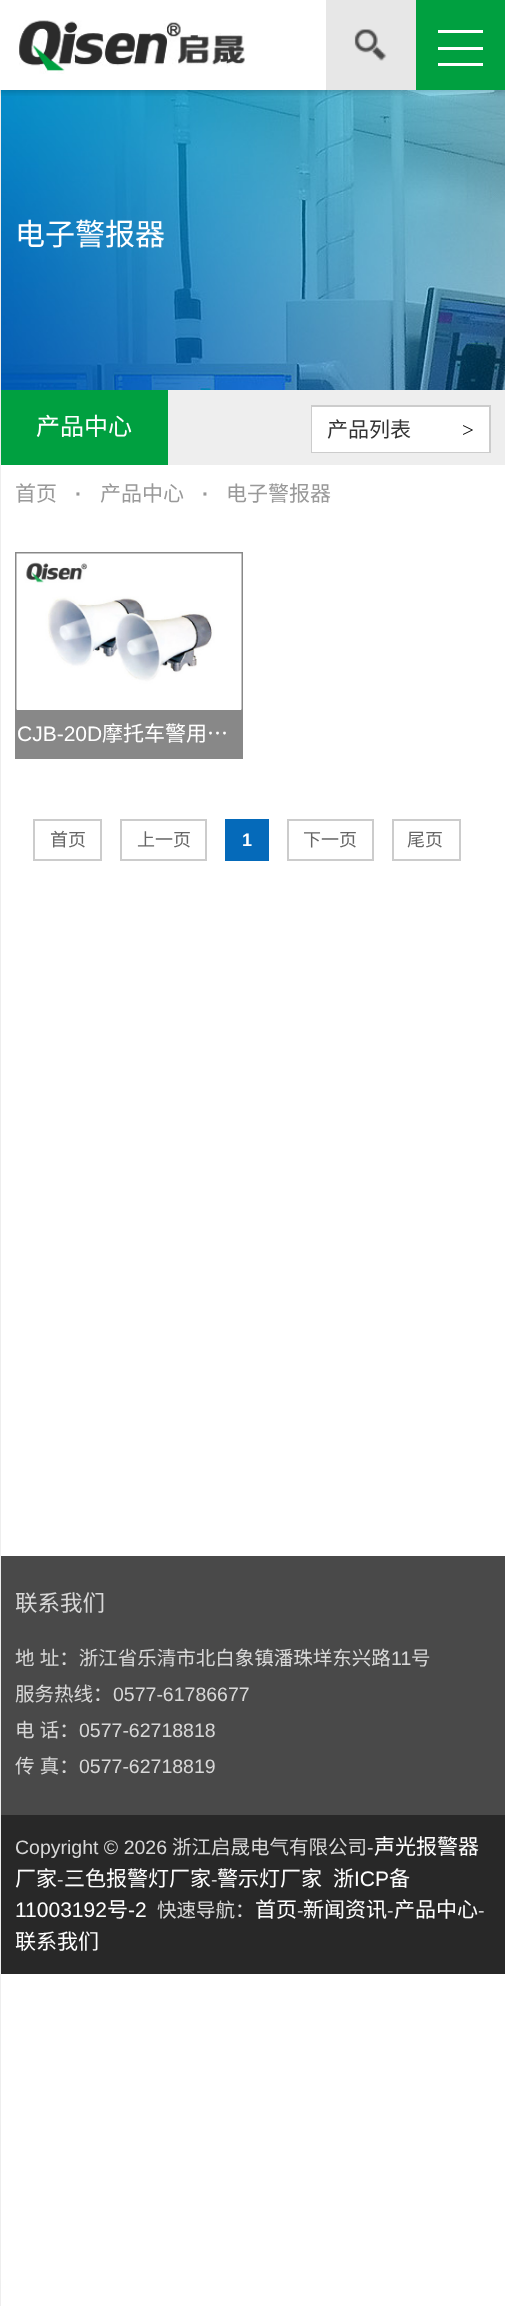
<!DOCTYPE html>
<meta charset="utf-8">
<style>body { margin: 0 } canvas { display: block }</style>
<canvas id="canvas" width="505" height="2306"></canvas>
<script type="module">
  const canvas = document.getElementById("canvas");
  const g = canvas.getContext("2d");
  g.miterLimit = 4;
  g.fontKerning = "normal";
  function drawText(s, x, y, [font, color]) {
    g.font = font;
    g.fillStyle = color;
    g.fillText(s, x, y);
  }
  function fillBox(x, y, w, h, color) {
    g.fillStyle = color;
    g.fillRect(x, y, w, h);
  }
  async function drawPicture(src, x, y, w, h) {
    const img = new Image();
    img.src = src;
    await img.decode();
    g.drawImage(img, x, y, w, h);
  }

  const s1 = ["30px Noto Sans CJK SC", "#FFFFFF"];
  const s2 = ["24px Noto Sans CJK SC", "#FFFFFF"];
  const s3 = ["21px Noto Sans CJK SC", "#333333"];
  const s4 = ["21px Liberation Serif", "#000000"];
  const s5 = ["21px Noto Sans CJK SC", "#999999"];
  const s6 = ["bold 21px Liberation Sans", "#999999"];
  const s7 = ["21px Liberation Sans", "#FFFFFF"];
  const s8 = ["21px Noto Sans CJK SC", "#FFFFFF"];
  const s9 = ["18px Noto Sans CJK SC", "#666666"];
  const s10 = ["bold 18px Liberation Sans", "#FFFFFF"];
  const s11 = ["22.5px Noto Sans CJK SC", "#D8D8D8"];
  const s12 = ["19.5px Noto Sans CJK SC", "#D8D8D8"];
  const s13 = ["19.5px Liberation Sans", "#D8D8D8"];

  fillBox(0, 0, 505, 2306, "#FFFFFF");
  fillBox(0, 90, 1, 2216, "#EEEEEE");
  await drawPicture("pic3.png", 1, 90, 504, 300);
  g.save();
  g.beginPath();
  g.rect(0, 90, 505, 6);
  g.clip();
  g.fillStyle = "rgba(0, 0, 0, 0.3)";
  g.filter = "blur(4px)";
  g.beginPath();
  g.rect(0, 0, 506, 90);
  g.fill();
  g.filter = "none";
  g.restore();
  await drawPicture("pic1.png", 19, 20, 226, 54);
  fillBox(326, 0, 90, 90, "#E7E7E7");
  await drawPicture("pic2.png", 354, 29, 33, 32);
  fillBox(416, 0, 89, 90, "#00A040");
  fillBox(438, 30, 45, 3, "#FFFFFF");
  fillBox(438, 47, 45, 3, "#FFFFFF");
  fillBox(438, 63, 45, 3, "#FFFFFF");
  drawText("电子警报器", 15, 245, s1);
  fillBox(168, 390, 337, 75, "#EEEEEE");
  fillBox(1, 390, 167, 75, "#00A040");
  drawText("产品中心", 36, 435, s2);
  g.strokeStyle = "#CCCCCC";
  g.lineWidth = 2;
  g.strokeRect(312, 406, 178, 46);
  fillBox(312, 407, 177, 45, "#FFFFFF");
  drawText("产品列表", 327, 437, s3);
  drawText(">", 462, 437, s4);
  drawText("首页", 15, 501, s5);
  drawText("·", 75, 501, s6);
  drawText("产品中心", 100, 501, s5);
  drawText("·", 202, 501, s6);
  drawText("电子警报器", 226, 501, s5);
  g.strokeStyle = "#888888";
  g.strokeRect(16, 553, 226, 205);
  await drawPicture("pic4.png", 16, 553, 226, 157);
  fillBox(17, 710, 224, 47, "#888888");
  drawText("CJB-20D", 17, 741, s7);
  drawText("摩托车警用…", 102, 741, s8);
  g.strokeStyle = "#CCCCCC";
  g.strokeRect(34, 820, 67, 40);
  drawText("首页", 50, 846, s9);
  g.strokeRect(121, 820, 85, 40);
  drawText("上一页", 137, 846, s9);
  fillBox(225, 819, 44, 42, "#056ABA");
  drawText("1", 242, 846, s10);
  g.strokeRect(288, 820, 85, 40);
  drawText("下一页", 303, 846, s9);
  g.strokeRect(393, 820, 67, 40);
  drawText("尾页", 407, 846, s9);
  fillBox(1, 1556, 504, 259, "#494949");
  drawText("联系我们", 15, 1611, s11);
  g.wordSpacing = "1px";
  drawText("地 址：浙江省乐清市北白象镇潘珠垟东兴路", 15, 1665, s12);
  g.wordSpacing = "0px";
  drawText("11", 391, 1665, s13);
  drawText("号", 411, 1665, s12);
  drawText("服务热线：", 15, 1701, s12);
  drawText("0577-61786677", 113, 1701, s13);
  g.wordSpacing = "1px";
  drawText("电 话：", 15, 1737, s12);
  g.wordSpacing = "0px";
  drawText("0577-62718818", 79, 1737, s13);
  g.wordSpacing = "1px";
  drawText("传 真：", 15, 1773, s12);
  g.wordSpacing = "0px";
  drawText("0577-62718819", 79, 1773, s13);
  fillBox(1, 1815, 504, 159, "#282828");
  drawText("Copyright © 2026", 15, 1854, s13);
  drawText("浙江启晟电气有限公司", 172, 1854, s12);
  drawText("-", 367, 1854, s13);
  drawText("声光报警器", 374, 1854, s8);
  drawText("厂家", 15, 1886, s8);
  drawText("-", 57, 1886, s13);
  drawText("三色报警灯厂家", 64, 1886, s8);
  drawText("-", 211, 1886, s13);
  drawText("警示灯厂家", 217, 1886, s8);
  drawText("浙", 333, 1886, s8);
  drawText("ICP", 354, 1886, s7);
  drawText("备", 389, 1886, s8);
  drawText("11003192", 15, 1917, s7);
  drawText("号", 107, 1917, s8);
  drawText("-2", 128, 1917, s7);
  drawText("快速导航：", 157, 1917, s12);
  drawText("首页", 255, 1917, s8);
  drawText("-", 297, 1917, s13);
  drawText("新闻资讯", 303, 1917, s8);
  drawText("-", 387, 1917, s13);
  drawText("产品中心", 394, 1917, s8);
  drawText("-", 478, 1917, s13);
  drawText("联系我们", 15, 1949, s8);
</script>
